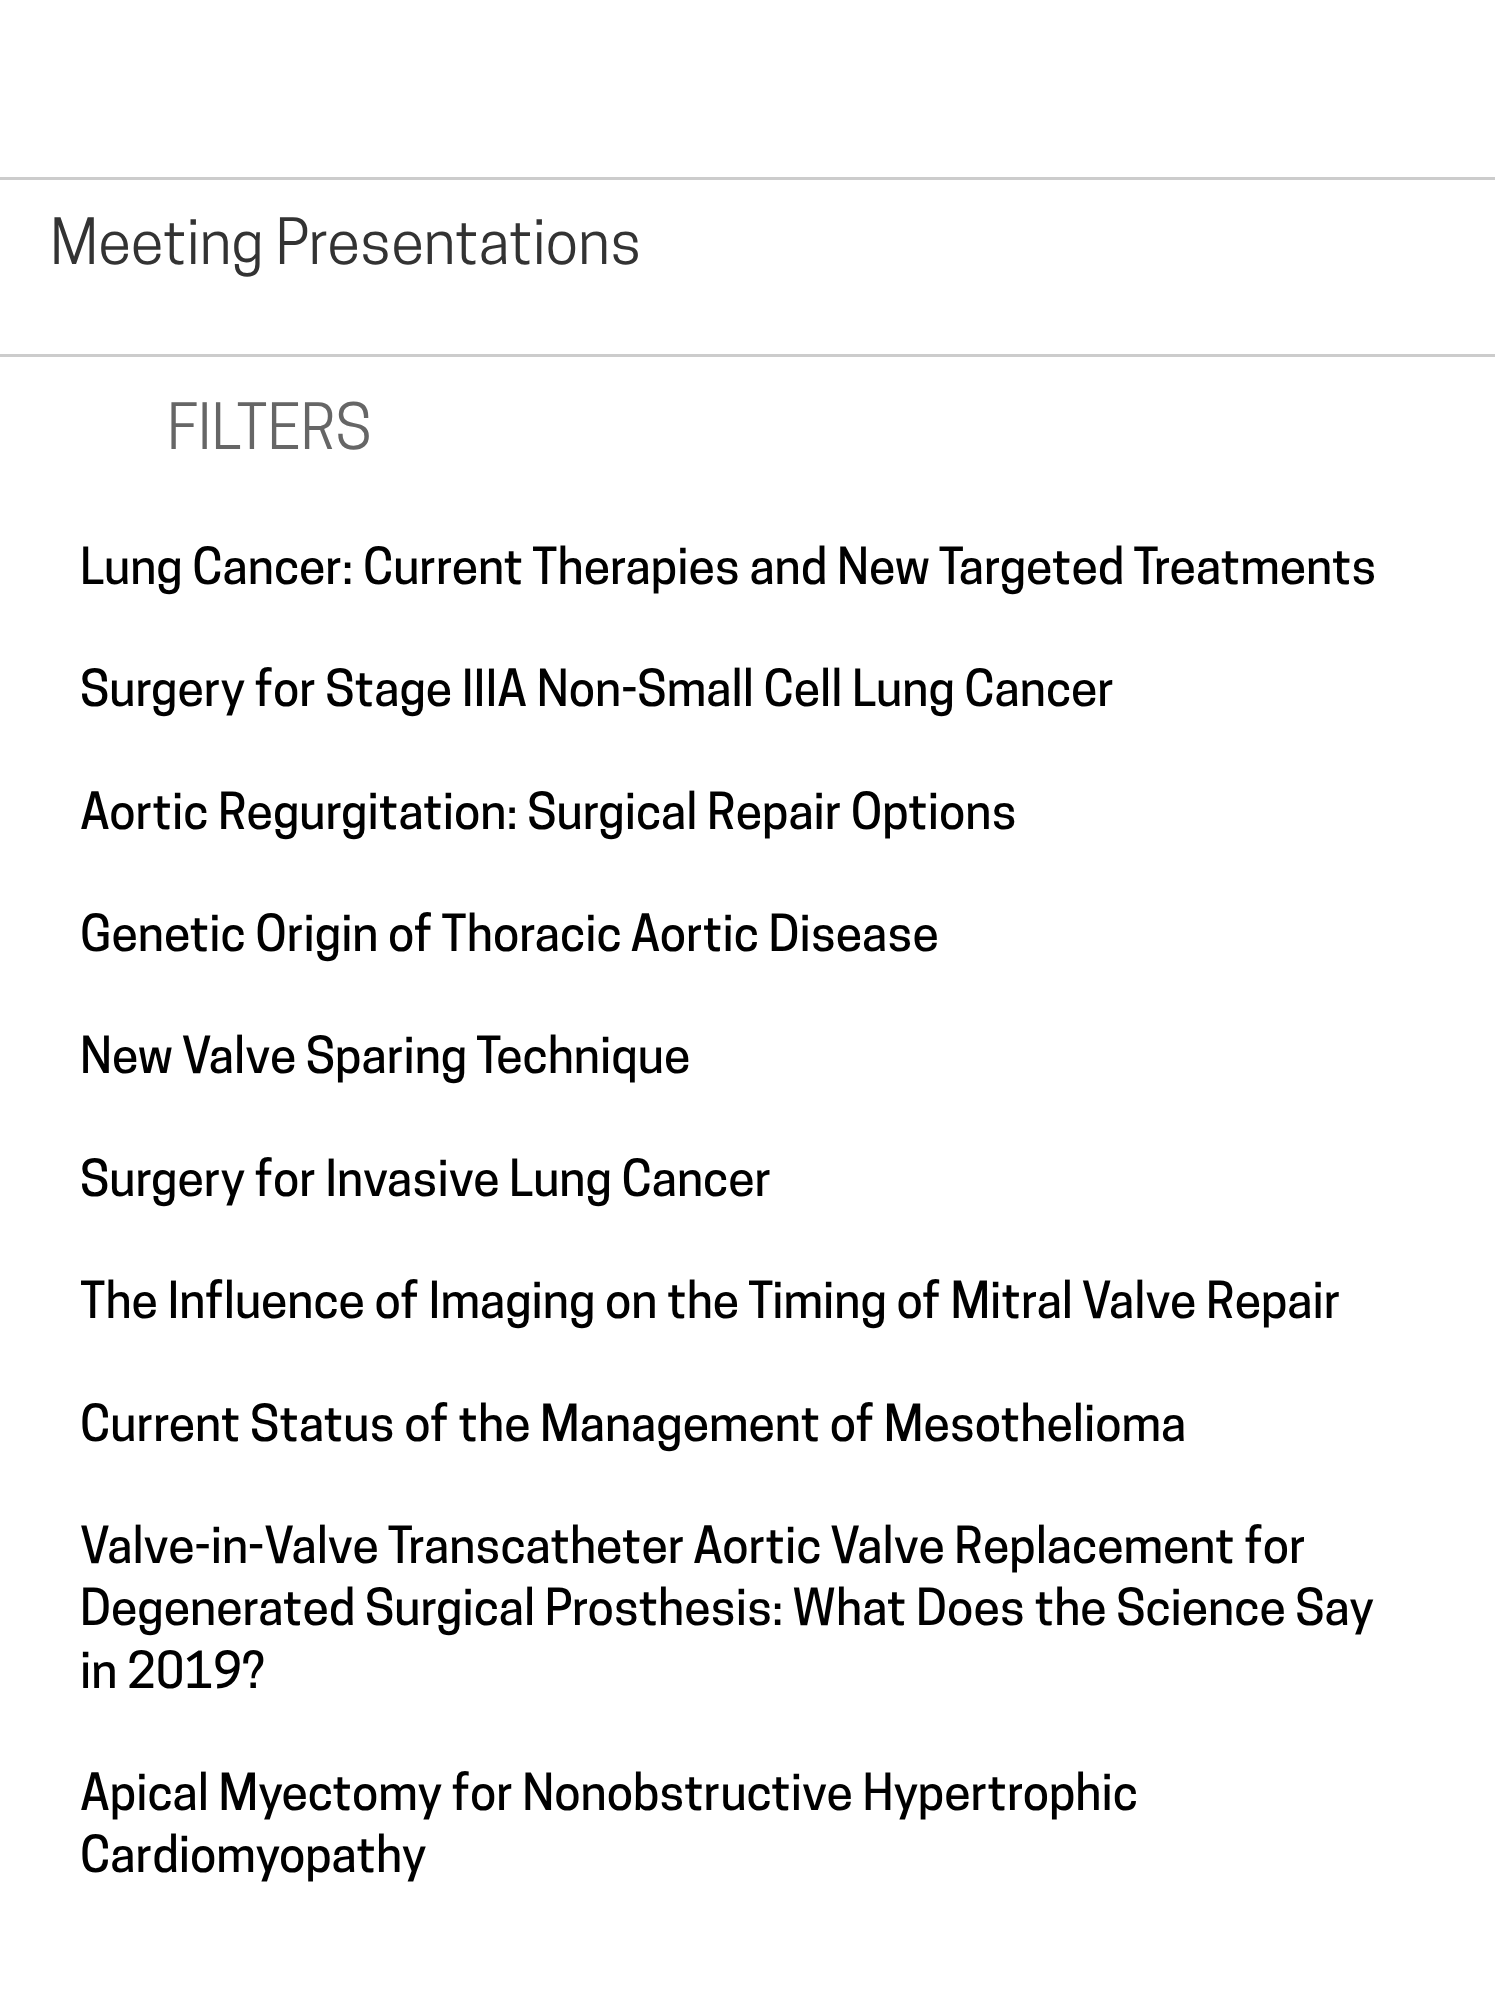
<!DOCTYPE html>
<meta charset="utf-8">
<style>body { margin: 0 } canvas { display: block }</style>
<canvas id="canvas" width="1495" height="1999"></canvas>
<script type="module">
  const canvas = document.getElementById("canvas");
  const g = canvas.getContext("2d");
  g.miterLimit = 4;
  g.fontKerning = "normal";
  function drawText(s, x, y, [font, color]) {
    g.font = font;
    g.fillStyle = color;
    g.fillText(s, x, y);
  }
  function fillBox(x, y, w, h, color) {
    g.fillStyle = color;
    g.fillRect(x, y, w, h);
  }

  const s1 = ["60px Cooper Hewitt", "#333333"];
  const s2 = ["60px Cooper Hewitt", "#666666"];
  const s3 = ["500 48px Cooper Hewitt", "#000000"];

  fillBox(0, 0, 1495, 1999, "#FFFFFF");
  fillBox(0, 177, 1495, 3, "#CCCCCC");
  drawText("Meeting Presentations", 50, 264, s1);
  fillBox(0, 354, 1495, 3, "#CCCCCC");
  drawText("FILTERS", 167, 449, s2);
  drawText("Lung Cancer: Current Therapies and New Targeted Treatments", 80, 584, s3);
  drawText("Surgery for Stage IIIA Non-Small Cell Lung Cancer", 80, 706, s3);
  drawText("Aortic Regurgitation: Surgical Repair Options", 80, 829, s3);
  drawText("Genetic Origin of Thoracic Aortic Disease", 80, 951, s3);
  drawText("New Valve Sparing Technique", 80, 1073, s3);
  drawText("Surgery for Invasive Lung Cancer", 80, 1196, s3);
  drawText("The Influence of Imaging on the Timing of Mitral Valve Repair", 80, 1318, s3);
  drawText("Current Status of the Management of Mesothelioma", 80, 1441, s3);
  drawText("Valve-in-Valve Transcatheter Aortic Valve Replacement for", 80, 1563, s3);
  drawText("Degenerated Surgical Prosthesis: What Does the Science Say", 80, 1625, s3);
  drawText("in 2019?", 80, 1688, s3);
  drawText("Apical Myectomy for Nonobstructive Hypertrophic", 80, 1810, s3);
  drawText("Cardiomyopathy", 80, 1872, s3);
</script>
